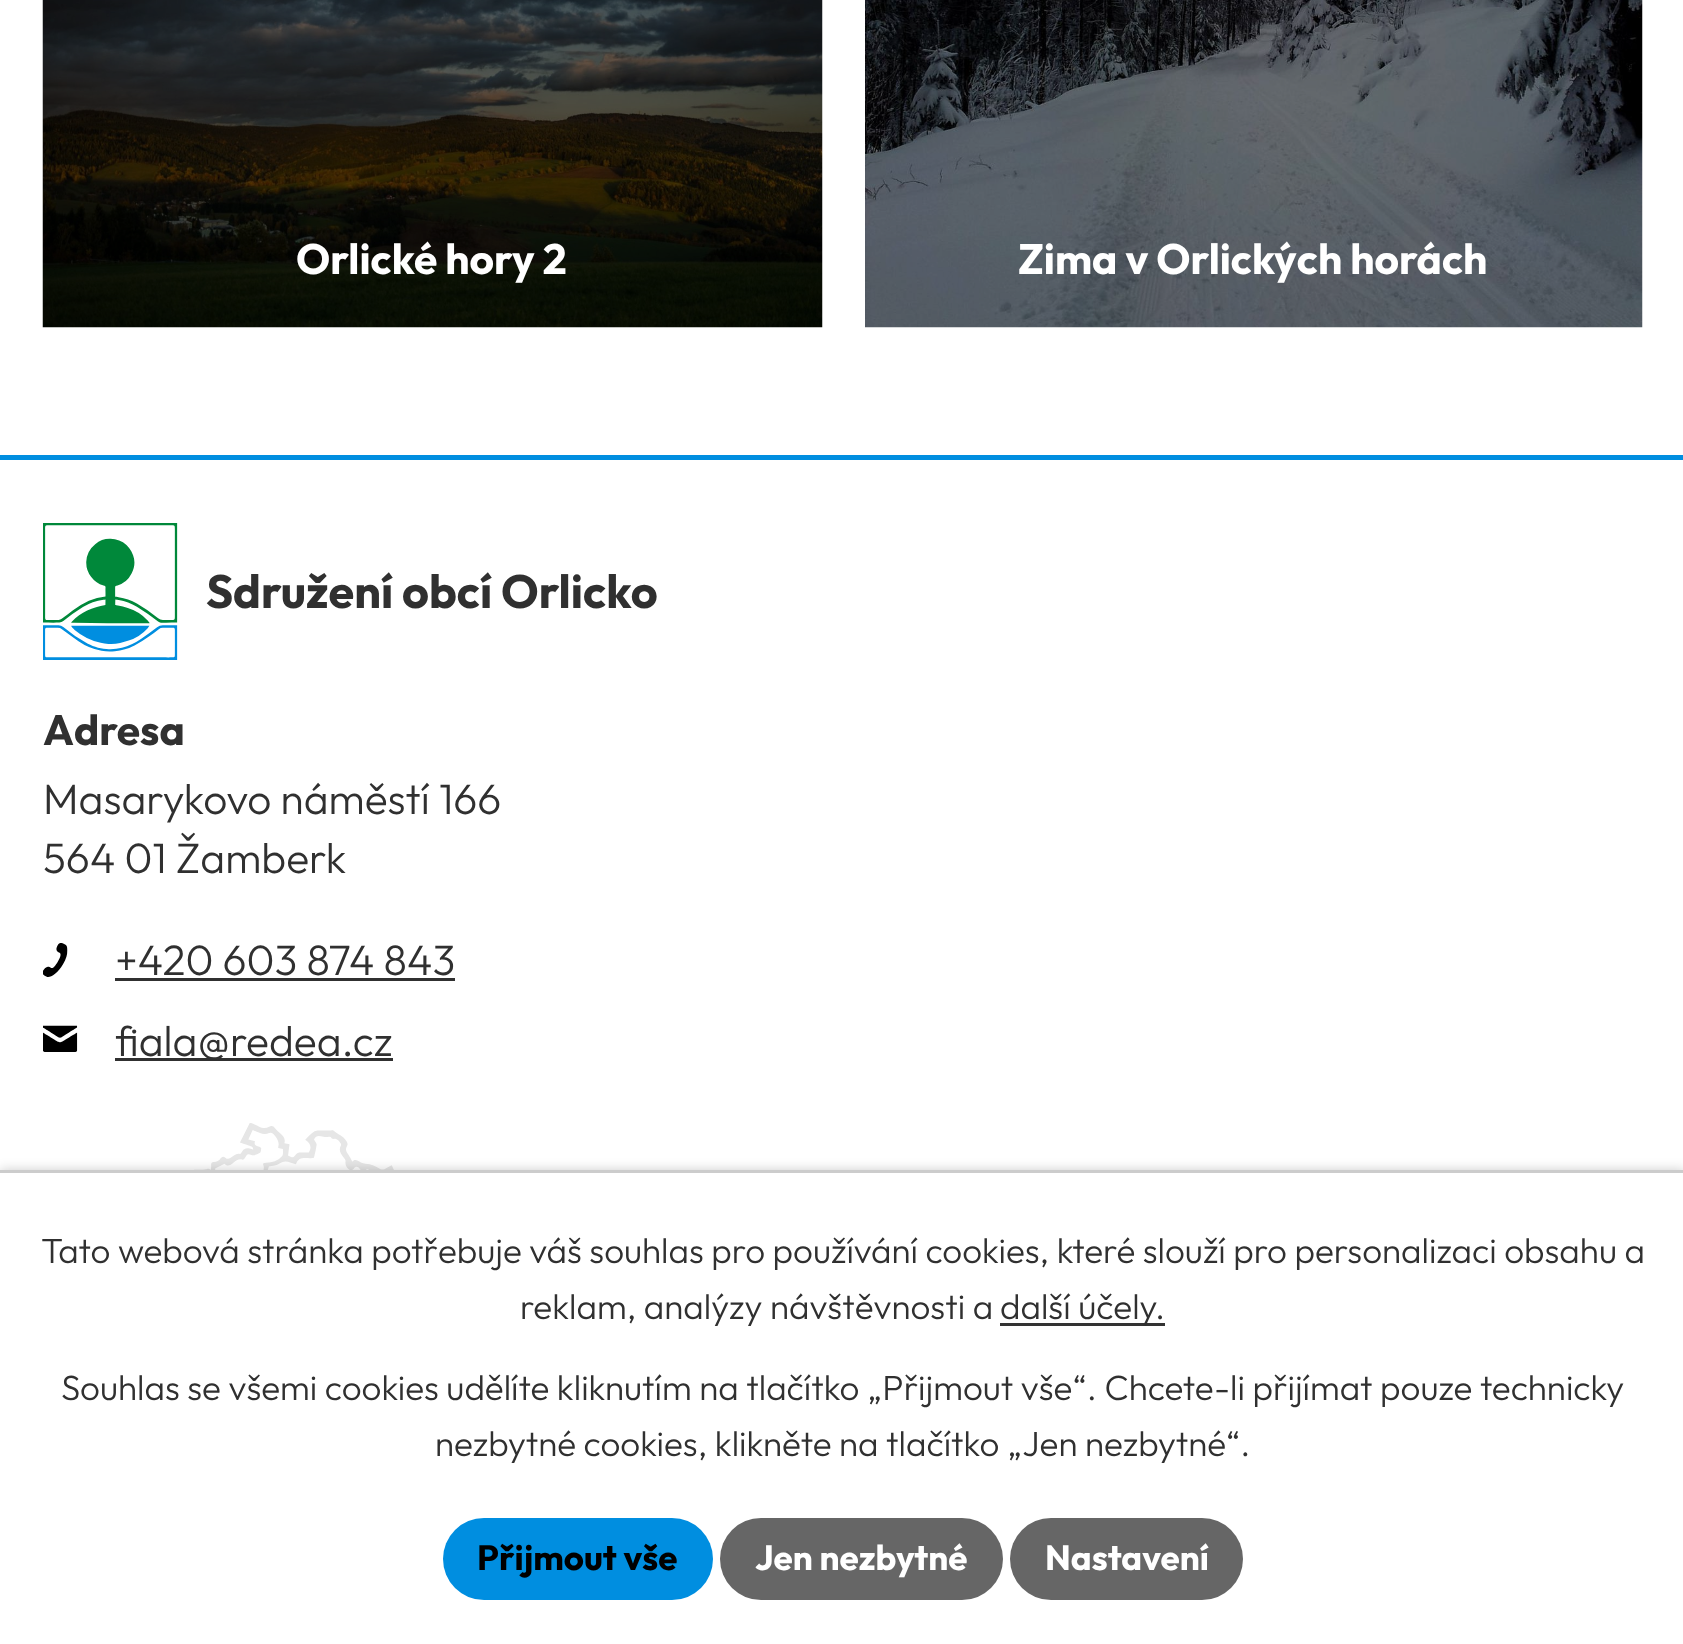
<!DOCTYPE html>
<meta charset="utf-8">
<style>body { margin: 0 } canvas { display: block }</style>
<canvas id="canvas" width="1683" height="1644"></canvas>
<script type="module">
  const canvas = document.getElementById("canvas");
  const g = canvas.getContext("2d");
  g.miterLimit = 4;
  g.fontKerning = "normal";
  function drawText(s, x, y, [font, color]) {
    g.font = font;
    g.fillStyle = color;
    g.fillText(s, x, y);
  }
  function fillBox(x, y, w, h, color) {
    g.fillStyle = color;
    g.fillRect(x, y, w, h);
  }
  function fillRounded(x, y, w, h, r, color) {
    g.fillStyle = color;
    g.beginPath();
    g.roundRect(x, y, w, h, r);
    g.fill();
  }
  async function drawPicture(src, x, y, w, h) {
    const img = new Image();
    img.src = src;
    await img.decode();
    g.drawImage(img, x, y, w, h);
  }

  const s1 = ["bold 42.5px Outfit", "#FFFFFF"];
  const s2 = ["bold 46.75px Outfit", "#303030"];
  const s3 = ["bold 42.5px Outfit", "#303030"];
  const s4 = ["300 42.5px Outfit", "#303030"];
  const s5 = ["300 35px Outfit", "#303030"];
  const s6 = ["bold 35px Outfit", "#000000"];
  const s7 = ["bold 35px Outfit", "#FFFFFF"];

  fillBox(0, 0, 1683, 1644, "#FFFFFF");
  await drawPicture("pic1.png", 42, 0, 781, 328);
  drawText("Orlické hory 2", 296, 274, s1);
  await drawPicture("pic2.png", 865, 0, 778, 328);
  drawText("Zima v Orlických horách", 1018, 274, s1);
  fillBox(0, 455, 1683, 5, "#008EE0");
  await drawPicture("pic3.png", 43, 523, 135, 137);
  drawText("Sdružení obcí Orlicko", 206, 608, s2);
  drawText("Adresa", 43, 745, s3);
  drawText("Masarykovo náměstí 166", 43, 814, s4);
  drawText("564 01 Žamberk", 43, 873, s4);
  await drawPicture("pic4.png", 43, 943, 25, 34);
  drawText("+420 603 874 843", 115, 975, s4);
  fillBox(115, 978, 340, 3, "#303030");
  await drawPicture("pic5.png", 43, 1025, 35, 27);
  fillBox(115, 1058, 278, 3, "#303030");
  drawText("fiala@redea.cz", 115, 1056, s4);
  await drawPicture("pic6.png", 194, 1123, 200, 47);
  g.fillStyle = "rgba(0, 0, 0, 0.2)";
  g.filter = "blur(6px)";
  g.beginPath();
  g.rect(0, 1170, 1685, 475);
  g.fill();
  g.filter = "none";
  fillBox(0, 1173, 1683, 471, "#FFFFFF");
  fillBox(0, 1170, 1683, 3, "#CCCCCC");
  drawText("Tato webová stránka potřebuje váš souhlas pro používání cookies, které slouží pro personalizaci obsahu a", 41, 1263, s5);
  drawText("reklam, analýzy návštěvnosti a", 520, 1319, s5);
  fillBox(1000, 1323, 165, 3, "#333333");
  drawText("další účely.", 1000, 1319, s5);
  drawText("Souhlas se všemi cookies udělíte kliknutím na tlačítko „Přijmout vše“. Chcete-li přijímat pouze technicky", 61, 1400, s5);
  drawText("nezbytné cookies, klikněte na tlačítko „Jen nezbytné“.", 435, 1456, s5);
  fillRounded(443, 1518, 270, 82, 41, "#008EE0");
  drawText("Přijmout vše", 477, 1570, s6);
  fillRounded(720, 1518, 283, 82, 41, "#666666");
  drawText("Jen nezbytné", 755, 1570, s7);
  fillRounded(1010, 1518, 233, 82, 41, "#666666");
  drawText("Nastavení", 1045, 1570, s7);
</script>
